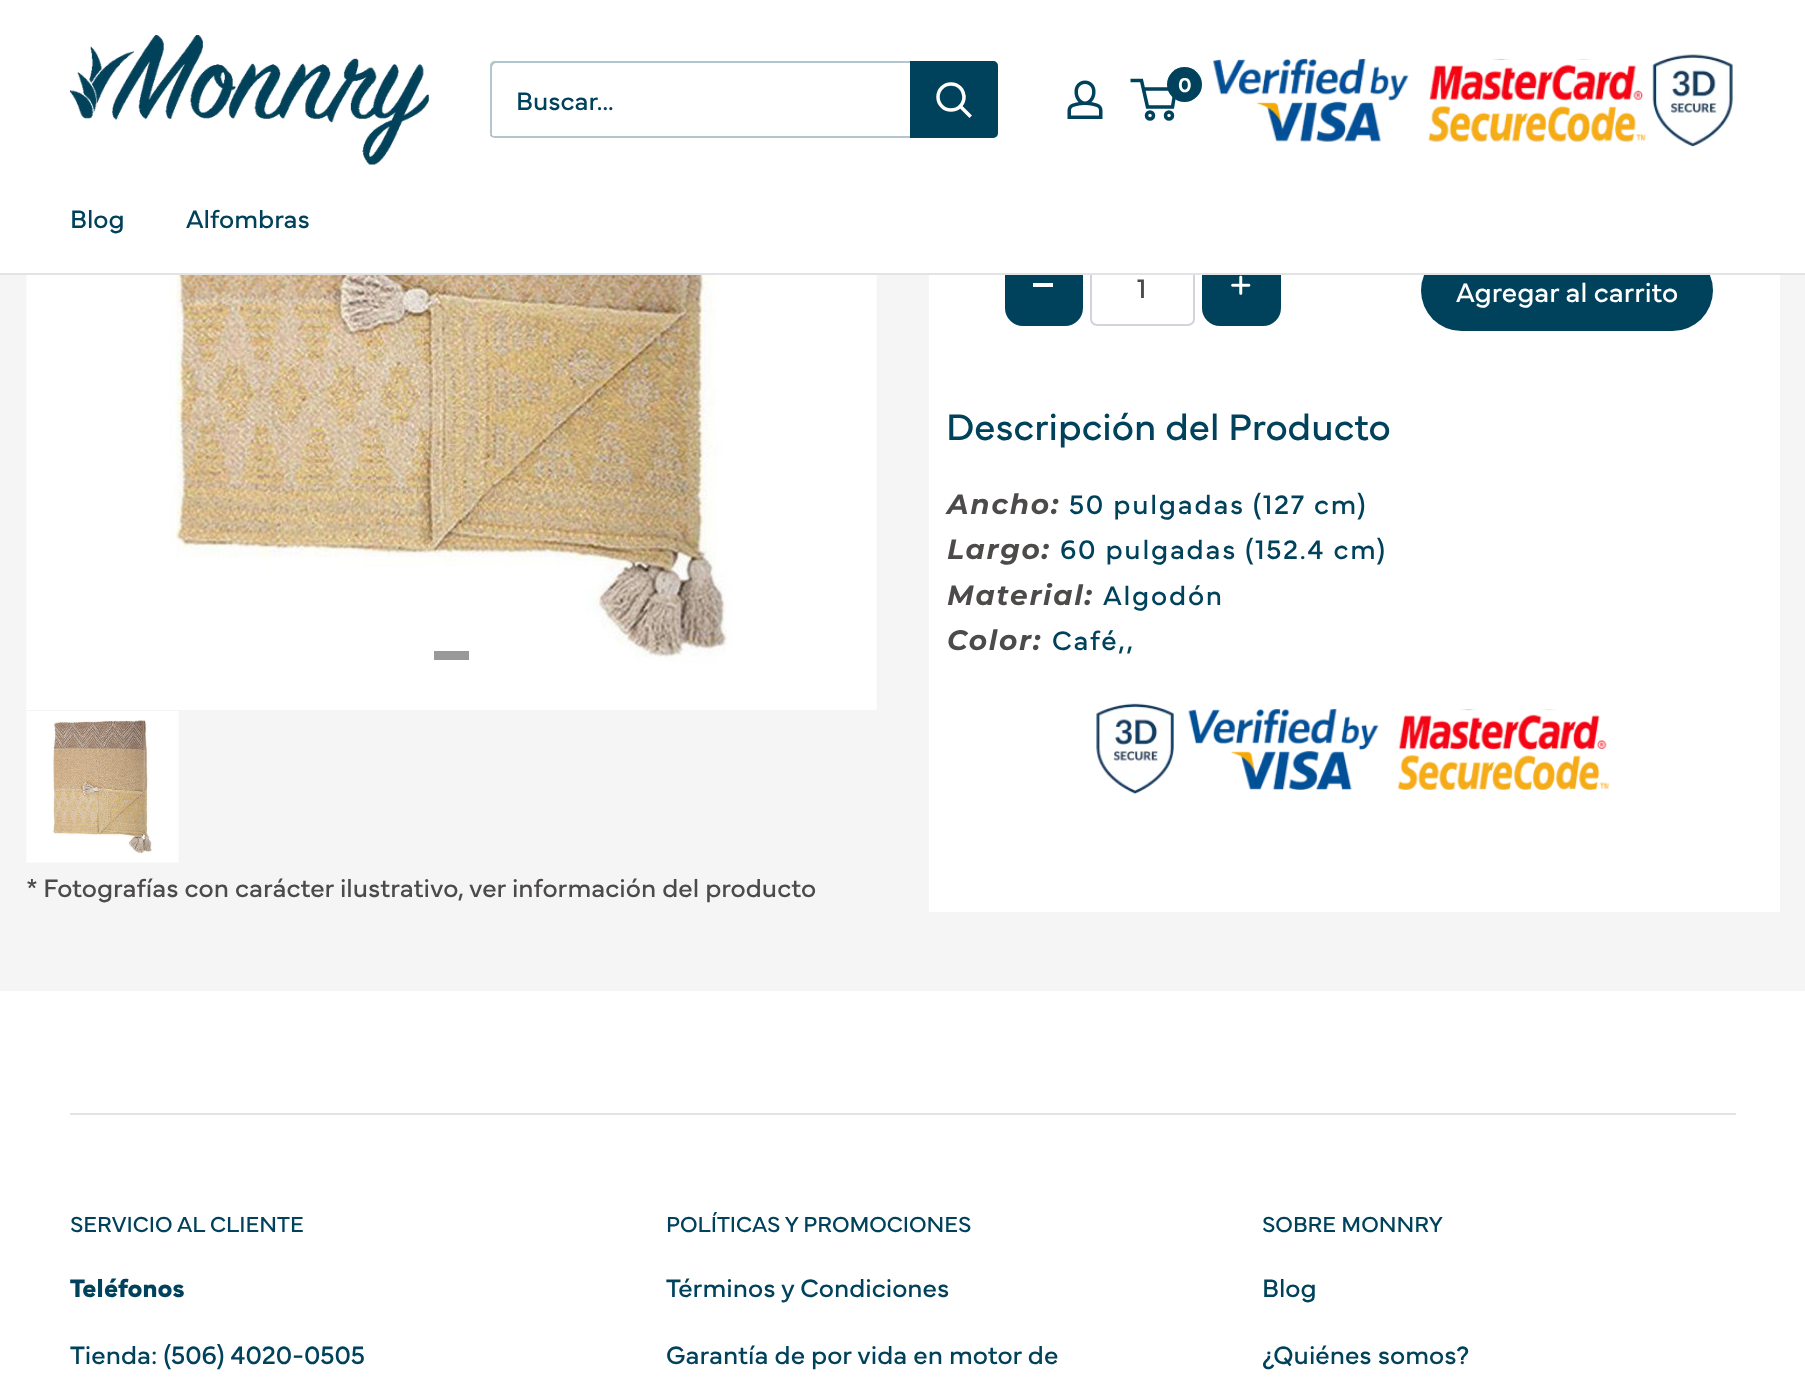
<!DOCTYPE html>
<meta charset="utf-8">
<style>body { margin: 0 } canvas { display: block }</style>
<canvas id="canvas" width="1805" height="1400"></canvas>
<script type="module">
  const canvas = document.getElementById("canvas");
  const g = canvas.getContext("2d");
  g.miterLimit = 4;
  g.fontKerning = "normal";
  function drawText(s, x, y, [font, color]) {
    g.font = font;
    g.fillStyle = color;
    g.fillText(s, x, y);
  }
  function fillBox(x, y, w, h, color) {
    g.fillStyle = color;
    g.fillRect(x, y, w, h);
  }
  function fillRounded(x, y, w, h, r, color) {
    g.fillStyle = color;
    g.beginPath();
    g.roundRect(x, y, w, h, r);
    g.fill();
  }
  async function drawPicture(src, x, y, w, h) {
    const img = new Image();
    img.src = src;
    await img.decode();
    g.drawImage(img, x, y, w, h);
  }

  const s1 = ["600 21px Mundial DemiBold", "#FFFFFF"];
  const s2 = ["26.25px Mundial", "#00425B"];
  const s3 = ["28px Mundial", "#4D4A4A"];
  const s4 = ["28px Mundial", "#FFFFFF"];
  const s5 = ["38.5px Mundial", "#00425B"];
  const s6 = ["italic bold 28px Montserrat", "#4D4A4A"];
  const s7 = ["28px Mundial", "#00425B"];
  const s8 = ["26.25px Mundial", "#4D4A4A"];
  const s9 = ["22.75px Mundial", "#00425B"];
  const s10 = ["bold 26.25px Mundial", "#00425B"];

  fillBox(0, 0, 1805, 1400, "#FFFFFF");
  await drawPicture("pic1.png", 70, 35, 359, 130);
  await drawPicture("pic2.png", 1067, 80, 36, 39);
  g.beginPath();
  g.arc(1150, 115.5, 3.5, 0, Math.PI * 2);
  g.strokeStyle = "#00425B";
  g.lineWidth = 3.5;
  g.stroke();
  g.beginPath();
  g.arc(1169, 115.5, 3.5, 0, Math.PI * 2);
  g.stroke();
  g.beginPath();
  g.moveTo(1143.5, 89);
  g.lineTo(1175.5, 89);
  g.lineTo(1172.5, 107);
  g.lineTo(1147.5, 107);
  g.lineTo(1141.5, 80.5);
  g.lineTo(1130.5, 80.5);
  g.stroke();
  g.fillStyle = "#00425B";
  g.beginPath();
  g.arc(1184.5, 84.5, 17.5, 0, Math.PI * 2);
  g.fill();
  drawText("0", 1178, 92, s1);
  await drawPicture("pic3.png", 1213, 54, 520, 93);
  g.fillStyle = "#B3C6CE";
  g.beginPath();
  g.moveTo(490, 135);
  g.bezierCurveTo(491, 137, 493, 138, 495, 138);
  g.lineTo(993, 138);
  g.bezierCurveTo(996, 138, 998, 136, 998, 133);
  g.lineTo(998, 66);
  g.bezierCurveTo(998, 63, 996, 61, 994, 61);
  g.bezierCurveTo(995, 62, 996, 63, 996, 65);
  g.lineTo(996, 131);
  g.bezierCurveTo(996, 134, 993, 136, 990, 136);
  g.lineTo(494, 136);
  g.closePath();
  g.fill();
  g.fillStyle = "rgba(0, 66, 91, 0.3)";
  g.beginPath();
  g.moveTo(497, 63);
  g.lineTo(994, 63);
  g.bezierCurveTo(996, 63, 997, 64, 998, 65);
  g.bezierCurveTo(997, 62, 995, 61, 993, 61);
  g.lineTo(495, 61);
  g.bezierCurveTo(492, 61, 490, 63, 490, 66);
  g.lineTo(490, 133);
  g.bezierCurveTo(490, 135, 491, 136, 492, 137);
  g.lineTo(492, 135);
  g.lineTo(492, 68);
  g.bezierCurveTo(492, 65, 494, 63, 497, 63);
  g.closePath();
  g.fill();
  drawText("Buscar...", 516, 110, s2);
  g.beginPath();
  g.roundRect(910, 61, 88, 77, [0, 5, 5, 0]);
  g.fill();
  g.beginPath();
  g.moveTo(969.5, 115.5);
  g.lineTo(961, 107);
  g.strokeStyle = "#FFFFFF";
  g.lineCap = "square";
  g.stroke();
  g.beginPath();
  g.arc(951, 97, 13, 0, Math.PI * 2);
  g.stroke();
  fillBox(0, 275, 1805, 716, "#F5F5F6");
  fillBox(929, 275, 851, 637, "#FFFFFF");
  fillRounded(1005, 247, 78, 79, 18, "#00425B");
  g.beginPath();
  g.roundRect(1091, 248, 103, 77, 6);
  g.strokeStyle = "#D1D5DB";
  g.lineWidth = 2;
  g.stroke();
  fillRounded(1202, 247, 79, 79, 18, "#00425B");
  fillRounded(1421, 250, 292, 81, 40.5, "#00425B");
  fillBox(1005, 247, 704, 26, "#FFFFFF");
  fillBox(0, 273, 1805, 2, "#E1E3E4");
  drawText("Blog", 70, 228, s2);
  drawText("Alfombras", 186, 228, s2);
  fillBox(1033, 283, 20, 4, "#FFFFFF");
  drawText("1", 1137, 298, s3);
  await drawPicture("pic4.png", 1231, 275, 20, 20);
  drawText("Agregar al carrito", 1456, 302, s4);
  drawText("Descripción del Producto", 946, 440, s5);
  g.letterSpacing = "1.75px";
  drawText("Ancho:", 947, 514, s6);
  drawText("50 pulgadas (127 cm)", 1069, 514, s7);
  drawText("Largo:", 947, 559, s6);
  drawText("60 pulgadas (152.4 cm)", 1060, 559, s7);
  drawText("Material:", 947, 605, s6);
  drawText("Algodón", 1103, 605, s7);
  drawText("Color:", 947, 650, s6);
  drawText("Café,,", 1052, 650, s7);
  await drawPicture("pic5.png", 1096, 703, 513, 92);
  await drawPicture("pic6.png", 26, 275, 851, 435);
  fillBox(434, 651, 35, 9, "#999999");
  await drawPicture("pic7.png", 26, 711, 153, 152);
  g.letterSpacing = "0px";
  drawText("* Fotografías con carácter ilustrativo, ver información del producto", 26, 897, s8);
  fillBox(70, 1113, 1666, 2, "#E1E3E4");
  drawText("SERVICIO AL CLIENTE", 70, 1232, s9);
  drawText("Teléfonos", 70, 1297, s10);
  drawText("Tienda: (506) 4020-0505", 70, 1364, s2);
  drawText("POLÍTICAS Y PROMOCIONES", 666, 1232, s9);
  drawText("Términos y Condiciones", 666, 1297, s2);
  drawText("Garantía de por vida en motor de", 666, 1364, s2);
  drawText("SOBRE MONNRY", 1262, 1232, s9);
  drawText("Blog", 1262, 1297, s2);
  drawText("¿Quiénes somos?", 1262, 1364, s2);
</script>
